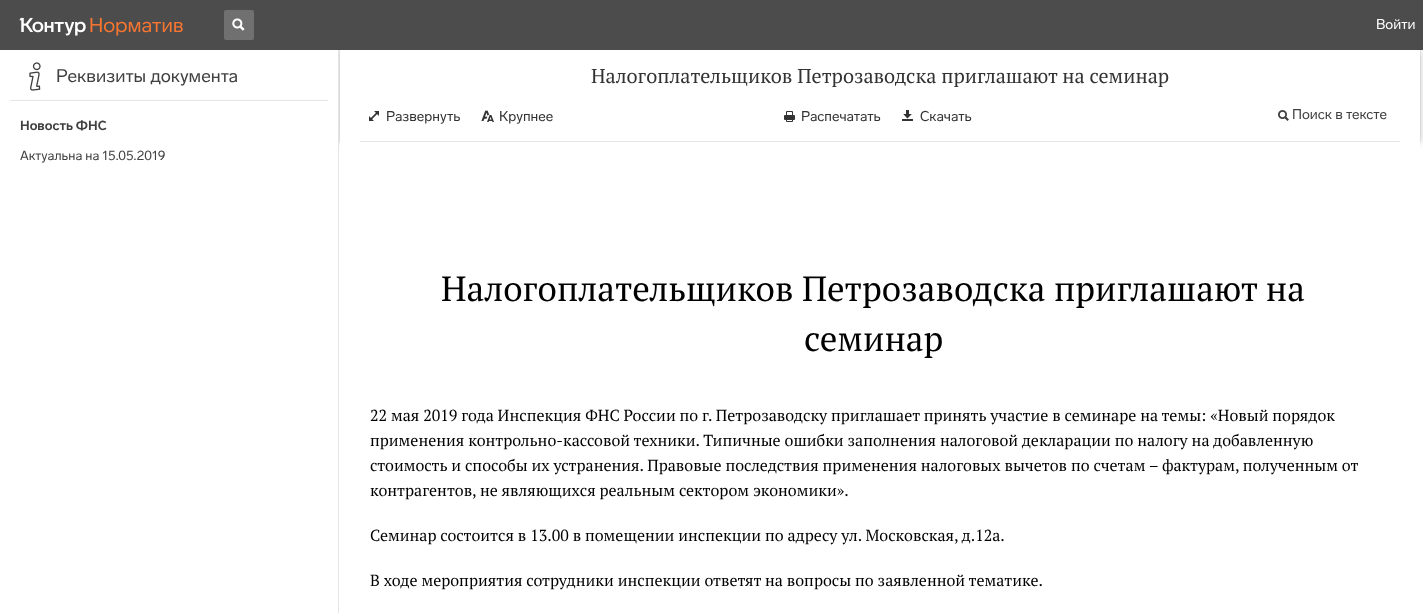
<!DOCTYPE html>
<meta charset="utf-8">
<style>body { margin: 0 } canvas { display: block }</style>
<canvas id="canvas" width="1423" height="613"></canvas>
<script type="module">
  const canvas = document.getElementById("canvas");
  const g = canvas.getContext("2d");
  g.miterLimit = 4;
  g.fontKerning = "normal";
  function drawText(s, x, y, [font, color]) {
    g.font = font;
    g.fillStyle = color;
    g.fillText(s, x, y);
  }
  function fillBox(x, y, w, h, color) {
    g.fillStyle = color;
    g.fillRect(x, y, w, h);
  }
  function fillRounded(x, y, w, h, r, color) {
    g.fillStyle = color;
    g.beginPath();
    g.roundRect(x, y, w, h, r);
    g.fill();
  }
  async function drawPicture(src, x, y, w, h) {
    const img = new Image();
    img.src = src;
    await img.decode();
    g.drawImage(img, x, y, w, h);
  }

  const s1 = ["14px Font", "#FFFFFF"];
  const s2 = ["18px Font", "#404040"];
  const s3 = ["bold 13px Font", "#404040"];
  const s4 = ["13px Font", "#404040"];
  const s5 = ["20px PT Serif", "#333333"];
  const s6 = ["14px Font", "#333333"];
  const s7 = ["14px Font", "#404040"];
  const s8 = ["35px PT Serif", "#000000"];
  const s9 = ["16px PT Serif", "#000000"];

  fillBox(0, 0, 1423, 613, "#FFFFFF");
  g.save();
  g.beginPath();
  g.moveTo(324, 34);
  g.lineTo(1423, 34);
  g.lineTo(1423, 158);
  g.lineTo(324, 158);
  g.closePath();
  g.moveTo(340, 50);
  g.lineTo(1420, 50);
  g.lineTo(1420, 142);
  g.lineTo(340, 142);
  g.closePath();
  g.clip("evenodd");
  g.fillStyle = "rgba(0, 0, 0, 0.23)";
  g.filter = "blur(5px)";
  g.beginPath();
  g.rect(340, 50, 1080, 92);
  g.fill();
  g.filter = "none";
  g.restore();
  g.strokeStyle = "rgba(0, 0, 0, 0.05)";
  g.strokeRect(339.5, 49.5, 1081, 93);
  fillBox(0, 0, 1423, 50, "#4C4C4C");
  await drawPicture("pic1.png", 19, 17, 67, 19);
  await drawPicture("pic2.png", 90, 17, 93, 19);
  fillRounded(224, 10, 30, 30, 2, "#707070");
  await drawPicture("pic3.png", 232, 18, 13, 13);
  drawText("Войти", 1376, 29, s1);
  fillBox(338, 50, 1, 563, "#E5E5E5");
  fillBox(331, 50, 7, 97, "#FFFFFF");
  await drawPicture("pic4.png", 29, 62, 12, 29);
  drawText("Реквизиты документа", 56, 82, s2);
  fillBox(10, 100, 318, 1, "#E6E6E6");
  drawText("Новость ФНС", 20, 130, s3);
  drawText("Актуальна на 15.05.2019", 20, 160, s4);
  drawText("Налогоплательщиков Петрозаводска приглашают на семинар", 591, 83, s5);
  await drawPicture("pic5.png", 369, 111, 10, 10);
  drawText("Развернуть", 386, 121, s6);
  await drawPicture("pic6.png", 481, 110, 13, 12);
  drawText("Крупнее", 499, 121, s6);
  await drawPicture("pic7.png", 784, 111, 11, 11);
  drawText("Распечатать", 801, 121, s6);
  await drawPicture("pic8.png", 902, 110, 11, 11);
  drawText("Скачать", 920, 121, s6);
  await drawPicture("pic9.png", 1278, 110, 11, 11);
  drawText("Поиск в тексте", 1292, 119, s7);
  fillBox(360, 141, 1040, 1, "#E5E5E5");
  fillBox(340, 142, 1080, 9, "#FFFFFF");
  drawText("Налогоплательщиков Петрозаводска приглашают на", 441, 301, s8);
  drawText("семинар", 804, 351, s8);
  drawText("22 мая 2019 года Инспекция ФНС России по г. Петрозаводску приглашает принять участие в семинаре на темы: «Новый порядок", 370, 421, s9);
  drawText("применения контрольно-кассовой техники. Типичные ошибки заполнения налоговой декларации по налогу на добавленную", 370, 446, s9);
  drawText("стоимость и способы их устранения. Правовые последствия применения налоговых вычетов по счетам – фактурам, полученным от", 370, 471, s9);
  drawText("контрагентов, не являющихся реальным сектором экономики».", 370, 496, s9);
  drawText("Семинар состоится в 13.00 в помещении инспекции по адресу ул. Московская, д.12а.", 370, 541, s9);
  drawText("В ходе мероприятия сотрудники инспекции ответят на вопросы по заявленной тематике.", 370, 586, s9);
</script>
